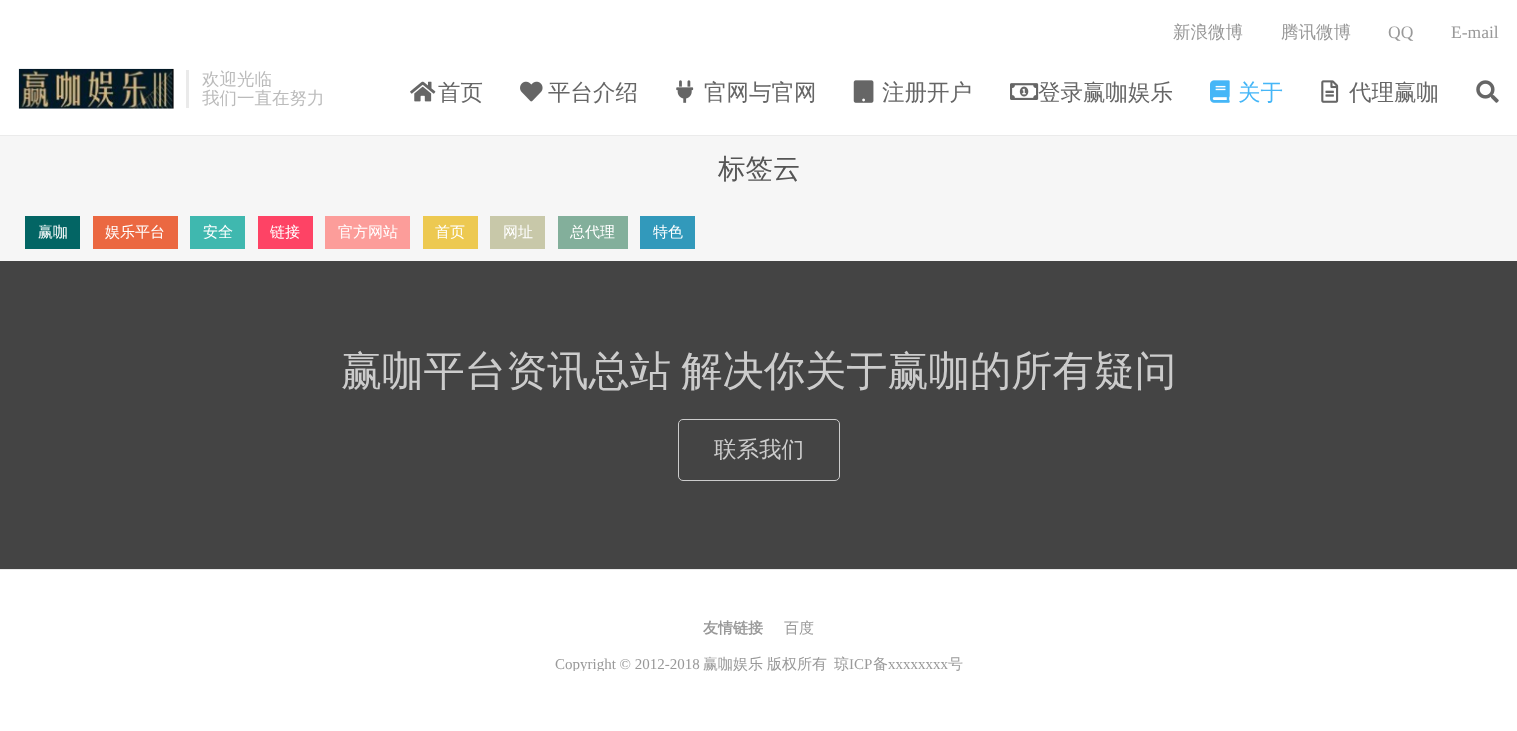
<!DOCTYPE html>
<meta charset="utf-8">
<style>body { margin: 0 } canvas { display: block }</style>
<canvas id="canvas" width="1517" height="731"></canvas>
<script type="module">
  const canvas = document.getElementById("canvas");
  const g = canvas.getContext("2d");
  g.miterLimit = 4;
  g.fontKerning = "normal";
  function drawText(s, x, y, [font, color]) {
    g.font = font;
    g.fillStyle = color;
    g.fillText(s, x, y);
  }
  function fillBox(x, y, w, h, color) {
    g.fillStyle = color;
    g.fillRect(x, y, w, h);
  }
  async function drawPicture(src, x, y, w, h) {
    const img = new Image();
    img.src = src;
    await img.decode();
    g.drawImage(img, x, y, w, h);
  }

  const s1 = ["500 17.5px WenQuanYi Zen Hei", "#999999"];
  const s2 = ["17.5px Liberation Serif", "#999999"];
  const s3 = ["500 17.5px WenQuanYi Zen Hei", "#BBBBBB"];
  const s4 = ["500 22.5px WenQuanYi Zen Hei", "#666666"];
  const s5 = ["500 22.5px WenQuanYi Zen Hei", "#45B6F7"];
  const s6 = ["500 27.5px WenQuanYi Zen Hei", "#555555"];
  const s7 = ["500 15px WenQuanYi Zen Hei", "#FFFFFF"];
  const s8 = ["500 41.25px WenQuanYi Zen Hei", "#CCCCCC"];
  const s9 = ["500 22.5px WenQuanYi Zen Hei", "#CCCCCC"];
  const s10 = ["bold 15px WenQuanYi Zen Hei", "#999999"];
  const s11 = ["500 15px WenQuanYi Zen Hei", "#999999"];
  const s12 = ["15px Liberation Serif", "#999999"];

  fillBox(0, 0, 1517, 731, "#F6F6F6");
  fillBox(0, 0, 1517, 135, "#FFFFFF");
  fillBox(0, 135, 1517, 1, "#EBEBEB");
  drawText("新浪微博", 1173, 38, s1);
  drawText("腾讯微博", 1281, 38, s1);
  drawText("QQ", 1388, 38, s2);
  drawText("E-mail", 1451, 38, s2);
  await drawPicture("pic1.png", 18, 68, 156, 41);
  fillBox(186, 70, 3, 38, "#EAEAEA");
  drawText("欢迎光临", 202, 85, s3);
  drawText("我们一直在努力", 202, 104, s3);
  await drawPicture("pic2.png", 410, 81, 26, 21);
  drawText("首页", 438, 100, s4);
  await drawPicture("pic3.png", 520, 81, 23, 21);
  drawText("平台介绍", 548, 100, s4);
  await drawPicture("pic4.png", 676, 80, 18, 23);
  drawText("官网与官网", 704, 100, s4);
  await drawPicture("pic5.png", 853, 80, 21, 23);
  drawText("注册开户", 882, 100, s4);
  await drawPicture("pic6.png", 1010, 83, 29, 17);
  drawText("登录赢咖娱乐", 1038, 100, s4);
  await drawPicture("pic7.png", 1210, 80, 20, 23);
  drawText("关于", 1238, 100, s5);
  await drawPicture("pic8.png", 1321, 80, 18, 23);
  drawText("代理赢咖", 1349, 100, s4);
  await drawPicture("pic9.png", 1476, 80, 23, 23);
  drawText("标签云", 718, 178, s6);
  fillBox(25, 216, 55, 33, "#036564");
  drawText("赢咖", 38, 237, s7);
  fillBox(93, 216, 85, 33, "#EB6841");
  drawText("娱乐平台", 105, 237, s7);
  fillBox(190, 216, 55, 33, "#3FB8AF");
  drawText("安全", 203, 237, s7);
  fillBox(258, 216, 55, 33, "#FE4365");
  drawText("链接", 270, 237, s7);
  fillBox(325, 216, 85, 33, "#FC9D9A");
  drawText("官方网站", 338, 237, s7);
  fillBox(423, 216, 55, 33, "#EDC951");
  drawText("首页", 435, 237, s7);
  fillBox(490, 216, 55, 33, "#C8C8A9");
  drawText("网址", 503, 237, s7);
  fillBox(558, 216, 70, 33, "#83AF9B");
  drawText("总代理", 570, 237, s7);
  fillBox(640, 216, 55, 33, "#3299BB");
  drawText("特色", 653, 237, s7);
  fillBox(0, 261, 1517, 308, "#444444");
  g.wordSpacing = "-2px";
  drawText("赢咖平台资讯总站 解决你关于赢咖的所有疑问", 341, 385, s8);
  g.beginPath();
  g.roundRect(678.5, 419.5, 161, 61, 4.5);
  g.strokeStyle = "#CCCCCC";
  g.stroke();
  g.wordSpacing = "0px";
  drawText("联系我们", 714, 457, s9);
  fillBox(0, 570, 1517, 161, "#FFFFFF");
  fillBox(0, 569, 1517, 1, "#EAEAEA");
  drawText("友情链接", 703, 633, s10);
  drawText("百度", 784, 633, s11);
  g.save();
  g.beginPath();
  g.rect(56, 656, 1405, 15);
  g.clip();
  drawText("Copyright © 2012-2018", 555, 669, s12);
  g.restore();
  drawText("赢咖娱乐", 703, 669, s11);
  drawText("版权所有", 767, 669, s11);
  drawText("琼", 834, 669, s11);
  drawText("ICP", 849, 669, s12);
  drawText("备", 873, 669, s11);
  drawText("xxxxxxxx", 888, 669, s12);
  drawText("号", 948, 669, s11);
</script>
